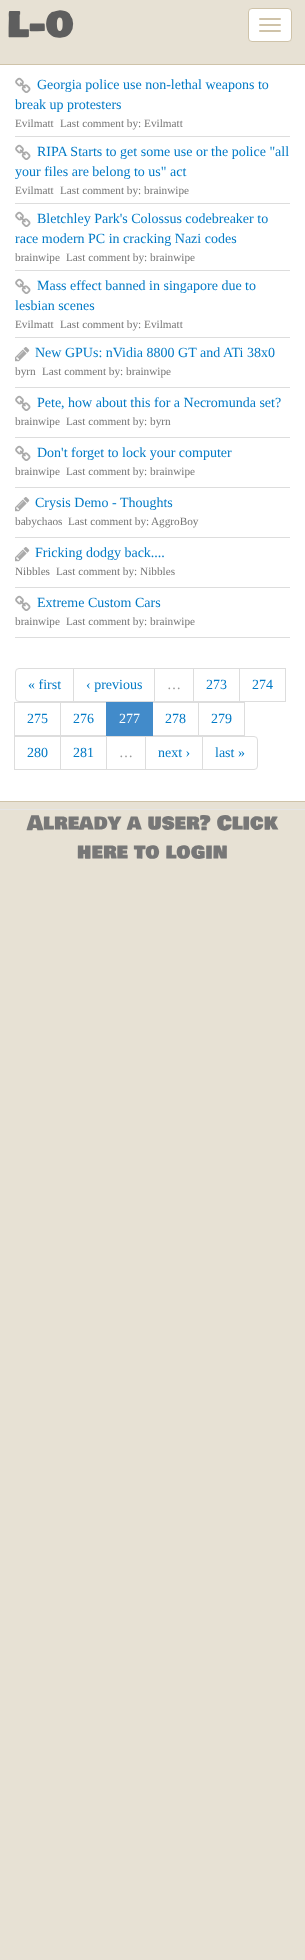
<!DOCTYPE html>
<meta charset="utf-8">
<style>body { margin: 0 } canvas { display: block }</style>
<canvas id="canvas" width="305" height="1960"></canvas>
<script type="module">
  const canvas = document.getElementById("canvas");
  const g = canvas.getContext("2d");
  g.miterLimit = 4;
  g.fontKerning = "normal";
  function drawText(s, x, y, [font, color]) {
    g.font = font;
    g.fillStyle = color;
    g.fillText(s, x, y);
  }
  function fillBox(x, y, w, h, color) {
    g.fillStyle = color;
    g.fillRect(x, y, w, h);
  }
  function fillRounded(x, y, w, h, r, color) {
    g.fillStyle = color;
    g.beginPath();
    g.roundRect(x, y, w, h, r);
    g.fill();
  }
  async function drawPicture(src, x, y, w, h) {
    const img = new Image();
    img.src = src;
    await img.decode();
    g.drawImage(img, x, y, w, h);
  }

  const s1 = ["40px Bowlby One SC", "#5E5E5E"];
  const s2 = ["14px Liberation Serif", "#027AC6"];
  const s3 = ["11.25px Liberation Serif", "#777777"];
  const s4 = ["14px Liberation Serif", "#999999"];
  const s5 = ["14px Liberation Serif", "#FFFFFF"];
  const s6 = ["20px Bowlby One SC", "#777777"];

  fillBox(0, 0, 305, 1960, "#E7E1D4");
  drawText("l-o", 7, 38, s1);
  g.fillStyle = "#FFFFFF";
  g.beginPath();
  g.roundRect(248.5, 8.5, 43, 33, 3.5);
  g.fill();
  g.strokeStyle = "#CFC3A9";
  g.stroke();
  fillRounded(259, 18, 22, 2, 1, "#CFC3A9");
  fillRounded(259, 24, 22, 2, 1, "#CFC3A9");
  fillRounded(259, 30, 22, 2, 1, "#CFC3A9");
  fillBox(0, 65, 305, 736, "#FFFFFF");
  fillBox(0, 64, 305, 1, "#CFC3A9");
  fillBox(0, 801, 305, 1, "#CFC3A9");
  fillBox(15, 136, 275, 1, "#DDDDDD");
  await drawPicture("pic1.png", 15, 77, 16, 16);
  drawText("Georgia police use non-lethal weapons to", 37, 89, s2);
  drawText("break up protesters", 15, 109, s2);
  drawText("Evilmatt", 15, 127, s3);
  drawText("Last comment by: Evilmatt", 60, 127, s3);
  fillBox(15, 203, 275, 1, "#DDDDDD");
  await drawPicture("pic1.png", 15, 144, 16, 16);
  drawText("RIPA Starts to get some use or the police \"all", 37, 156, s2);
  drawText("your files are belong to us\" act", 15, 176, s2);
  drawText("Evilmatt", 15, 194, s3);
  drawText("Last comment by: brainwipe", 60, 194, s3);
  fillBox(15, 270, 275, 1, "#DDDDDD");
  await drawPicture("pic1.png", 15, 211, 16, 16);
  drawText("Bletchley Park's Colossus codebreaker to", 37, 223, s2);
  drawText("race modern PC in cracking Nazi codes", 15, 243, s2);
  drawText("brainwipe", 15, 261, s3);
  drawText("Last comment by: brainwipe", 66, 261, s3);
  fillBox(15, 337, 275, 1, "#DDDDDD");
  await drawPicture("pic1.png", 15, 278, 16, 16);
  drawText("Mass effect banned in singapore due to", 37, 290, s2);
  drawText("lesbian scenes", 15, 310, s2);
  drawText("Evilmatt", 15, 328, s3);
  drawText("Last comment by: Evilmatt", 60, 328, s3);
  fillBox(15, 387, 275, 1, "#DDDDDD");
  await drawPicture("pic2.png", 15, 347, 15, 15);
  drawText("New GPUs: nVidia 8800 GT and ATi 38x0", 35, 357, s2);
  drawText("byrn", 15, 375, s3);
  drawText("Last comment by: brainwipe", 42, 375, s3);
  fillBox(15, 437, 275, 1, "#DDDDDD");
  await drawPicture("pic1.png", 15, 395, 16, 16);
  drawText("Pete, how about this for a Necromunda set?", 37, 407, s2);
  drawText("brainwipe", 15, 425, s3);
  drawText("Last comment by: byrn", 66, 425, s3);
  fillBox(15, 487, 275, 1, "#DDDDDD");
  await drawPicture("pic1.png", 15, 445, 16, 16);
  drawText("Don't forget to lock your computer", 37, 457, s2);
  drawText("brainwipe", 15, 475, s3);
  drawText("Last comment by: brainwipe", 66, 475, s3);
  fillBox(15, 537, 275, 1, "#DDDDDD");
  await drawPicture("pic2.png", 15, 497, 15, 15);
  drawText("Crysis Demo - Thoughts", 35, 507, s2);
  drawText("babychaos", 15, 525, s3);
  drawText("Last comment by:", 68, 525, s3);
  drawText("AggroBoy", 151, 525, s3);
  fillBox(15, 587, 275, 1, "#DDDDDD");
  await drawPicture("pic2.png", 15, 547, 15, 15);
  drawText("Fricking dodgy back....", 35, 557, s2);
  drawText("Nibbles", 15, 575, s3);
  drawText("Last comment by: Nibbles", 56, 575, s3);
  fillBox(15, 637, 275, 1, "#DDDDDD");
  await drawPicture("pic1.png", 15, 595, 16, 16);
  drawText("Extreme Custom Cars", 37, 607, s2);
  drawText("brainwipe", 15, 625, s3);
  drawText("Last comment by: brainwipe", 66, 625, s3);
  g.beginPath();
  g.roundRect(15.5, 668.5, 58, 33, [3.5, 0, 0, 3.5]);
  g.strokeStyle = "#DDDDDD";
  g.stroke();
  drawText("« first", 28, 689, s2);
  g.strokeRect(73.5, 668.5, 81, 33);
  drawText("‹ previous", 86, 689, s2);
  g.strokeRect(154.5, 668.5, 39, 33);
  drawText("…", 167, 689, s4);
  g.strokeRect(193.5, 668.5, 46, 33);
  drawText("273", 206, 689, s2);
  g.strokeRect(239.5, 668.5, 46, 33);
  drawText("274", 252, 689, s2);
  g.strokeRect(14.5, 702.5, 46, 33);
  drawText("275", 27, 723, s2);
  g.strokeRect(60.5, 702.5, 46, 33);
  drawText("276", 73, 723, s2);
  g.strokeRect(152.5, 702.5, 46, 33);
  fillBox(106, 702, 47, 34, "#428BCA");
  drawText("277", 119, 723, s5);
  drawText("278", 165, 723, s2);
  g.strokeRect(198.5, 702.5, 46, 33);
  drawText("279", 211, 723, s2);
  g.strokeRect(14.5, 736.5, 46, 33);
  drawText("280", 27, 757, s2);
  g.strokeRect(60.5, 736.5, 46, 33);
  drawText("281", 73, 757, s2);
  g.strokeRect(106.5, 736.5, 39, 33);
  drawText("…", 119, 757, s4);
  g.strokeRect(145.5, 736.5, 57, 33);
  drawText("next ›", 158, 757, s2);
  g.fillStyle = "#FFFFFF";
  g.beginPath();
  g.roundRect(202.5, 736.5, 55, 33, [0, 3.5, 3.5, 0]);
  g.fill();
  g.stroke();
  drawText("last »", 215, 757, s2);
  fillBox(0, 809, 305, 1, "#E5E5E5");
  drawText("Already a user? Click", 27, 830, s6);
  drawText("here to login", 77, 859, s6);
</script>
